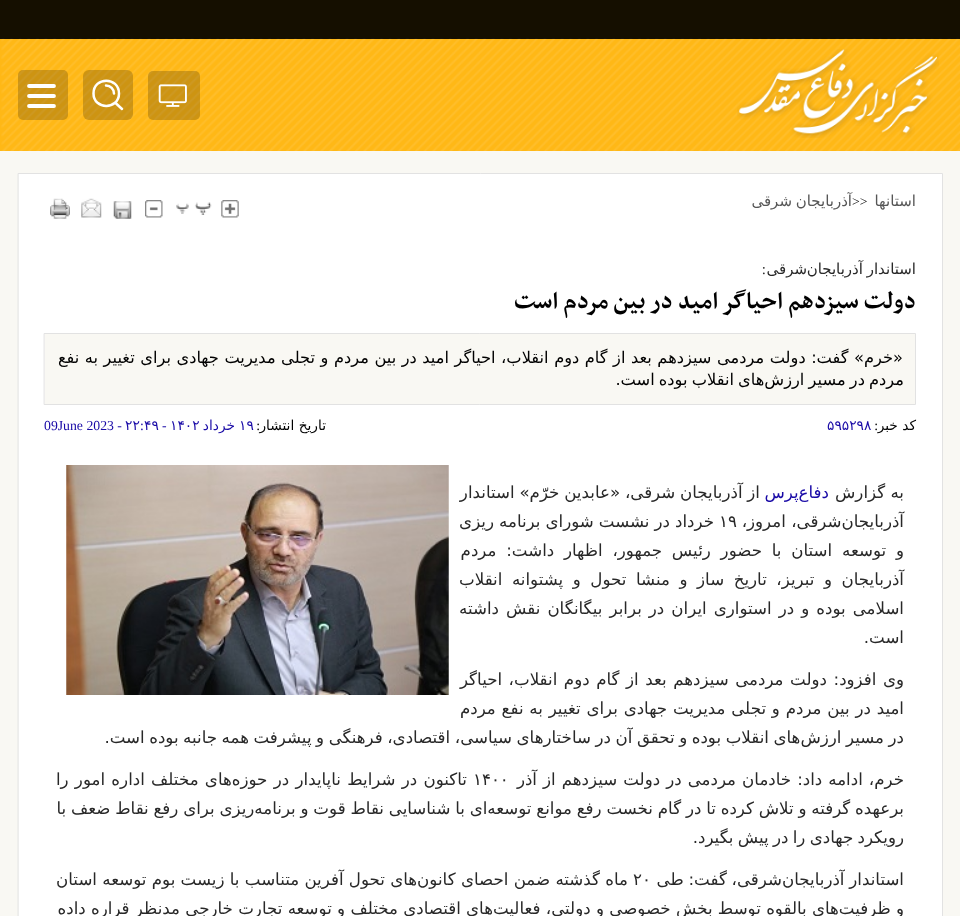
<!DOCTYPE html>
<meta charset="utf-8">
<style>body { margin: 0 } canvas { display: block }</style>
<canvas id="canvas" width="960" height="916"></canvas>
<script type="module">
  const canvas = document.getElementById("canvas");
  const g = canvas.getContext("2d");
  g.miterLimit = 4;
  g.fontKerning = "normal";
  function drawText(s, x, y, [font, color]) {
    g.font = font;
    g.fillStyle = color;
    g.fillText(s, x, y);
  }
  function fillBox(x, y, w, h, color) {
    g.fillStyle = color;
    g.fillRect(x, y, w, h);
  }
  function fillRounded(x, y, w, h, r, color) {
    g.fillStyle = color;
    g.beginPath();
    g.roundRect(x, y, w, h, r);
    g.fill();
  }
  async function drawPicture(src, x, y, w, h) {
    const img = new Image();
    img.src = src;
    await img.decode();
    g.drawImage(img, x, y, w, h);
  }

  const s1 = ["15px DejaVu Sans", "#565656"];
  const s2 = ["13.75px Liberation Serif", "#000000"];
  const s3 = ["15px DejaVu Sans", "#282828"];
  const s4 = ["15px Liberation Serif", "#282828"];
  const s5 = ["bold 27.5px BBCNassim", "#000000"];
  const s6 = ["16.25px DejaVu Sans", "#000000"];
  const s7 = ["13.75px DejaVu Sans", "#000000"];
  const s8 = ["13.75px DejaVu Sans", "#1809A6"];
  const s9 = ["13.75px Liberation Serif", "#1809A6"];
  const s10 = ["16.67px DejaVu Sans", "#282828"];
  const s11 = ["16.67px DejaVu Sans", "#1809A6"];

  fillBox(0, 0, 960, 916, "#F9F8F3");
  fillBox(0, 0, 960, 39, "#150F00");
  fillBox(0, 39, 960, 112, "#FFB816");
  await drawPicture("pic1.png", 1, 38, 959, 113);
  await drawPicture("pic2.png", 737, 49, 202, 89);
  fillRounded(148, 71, 52, 49, 5, "rgba(4, 4, 4, 0.2)");
  await drawPicture("pic3.png", 158, 84, 29, 23);
  fillRounded(83, 70, 50, 50, 6, "rgba(4, 4, 4, 0.2)");
  g.beginPath();
  g.moveTo(122, 109);
  g.lineTo(115, 102.5);
  g.moveTo(106, 85.5);
  g.bezierCurveTo(110.5, 85.5, 114, 89, 114, 93.5);
  g.moveTo(119, 93.5);
  g.bezierCurveTo(119, 110, 93.5, 110, 93.5, 93.5);
  g.bezierCurveTo(93.5, 76.5, 119, 76.5, 119, 93.5);
  g.closePath();
  g.strokeStyle = "#FFFFFF";
  g.lineWidth = 2.5;
  g.lineCap = "round";
  g.lineJoin = "round";
  g.stroke();
  fillRounded(18, 70, 50, 50, 5, "rgba(4, 4, 4, 0.2)");
  g.beginPath();
  g.moveTo(29, 86);
  g.lineTo(54, 86);
  g.moveTo(29, 96);
  g.lineTo(54, 96);
  g.moveTo(29, 106);
  g.lineTo(54, 106);
  g.lineWidth = 3.8;
  g.lineJoin = "miter";
  g.stroke();
  g.fillStyle = "#FFFFFF";
  g.beginPath();
  g.rect(18.5, 173.5, 924, 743);
  g.fill();
  g.strokeStyle = "#E2E2E2";
  g.lineWidth = 1;
  g.stroke();
  g.direction = "rtl";
  drawText("استانها", 916, 206, s1);
  g.direction = "ltr";
  drawText(">>", 852, 206, s2);
  g.wordSpacing = "-1px";
  g.direction = "rtl";
  drawText("آذربایجان شرقی", 852, 206, s1);
  await drawPicture("pic4.png", 221, 200, 18, 18);
  await drawPicture("pic5.png", 176, 202, 36, 13);
  await drawPicture("pic6.png", 145, 200, 18, 18);
  await drawPicture("pic7.png", 113, 201, 19, 18);
  await drawPicture("pic8.png", 81, 198, 21, 20);
  await drawPicture("pic9.png", 50, 198, 20, 21);
  drawText("استاندار آذربایجان", 916, 274, s3);
  g.wordSpacing = "0px";
  drawText("شرقی", 807, 274, s3);
  drawText(":", 766, 274, s4);
  drawText("دولت سیزدهم احیاگر امید در بین مردم است", 916, 308, s5);
  g.fillStyle = "#F9F8F3";
  g.beginPath();
  g.rect(44.5, 333.5, 871, 71);
  g.fill();
  g.stroke();
  g.wordSpacing = "0.35px";
  drawText("«خرم» گفت: دولت مردمی سیزدهم بعد از گام دوم انقلاب، احیاگر امید در بین مردم و تجلی مدیریت جهادی برای تغییر به نفع", 903, 363, s6);
  g.wordSpacing = "-1px";
  drawText("مردم در مسیر ارزش‌های انقلاب بوده است.", 904, 385, s6);
  g.wordSpacing = "0px";
  drawText(":", 878, 430, s2);
  drawText("کد خبر", 916, 430, s7);
  g.direction = "ltr";
  drawText("۵۹۵۲۹۸", 827, 430, s8);
  g.direction = "rtl";
  drawText("تاریخ انتشار", 326, 430, s7);
  drawText(":", 260, 430, s2);
  g.direction = "ltr";
  drawText("۱۹", 239, 430, s8);
  g.direction = "rtl";
  drawText("خرداد", 235, 430, s8);
  g.direction = "ltr";
  drawText("۱۴۰۲", 170, 430, s8);
  drawText("-", 162, 430, s9);
  drawText("۴۹", 144, 430, s8);
  drawText(":", 140, 430, s9);
  drawText("۲۲", 125, 430, s8);
  drawText("09June 2023 -", 44, 430, s9);
  g.direction = "rtl";
  drawText("به گزارش", 904, 498, s10);
  drawText("دفاع‌پرس", 829, 498, s11);
  g.wordSpacing = "-0.5px";
  drawText("از آذربایجان شرقی، «عابدین خرّم» استاندار", 760, 498, s10);
  g.wordSpacing = "0px";
  drawText("آذربایجان‌شرقی، امروز،", 904, 527, s10);
  g.direction = "ltr";
  drawText("۱۹", 719, 527, s10);
  g.wordSpacing = "-0.25px";
  g.direction = "rtl";
  drawText("خرداد در نشست شورای برنامه ریزی", 714, 527, s10);
  g.wordSpacing = "4.5px";
  drawText("و توسعه استان با حضور رئیس جمهور، اظهار داشت: مردم", 904, 556, s10);
  g.wordSpacing = "4.25px";
  drawText("آذربایجان و تبریز، تاریخ ساز و منشا تحول و پشتوانه انقلاب", 904, 585, s10);
  g.wordSpacing = "1.75px";
  drawText("اسلامی بوده و در استواری ایران در برابر بیگانگان نقش داشته", 904, 614, s10);
  g.wordSpacing = "0px";
  drawText("است.", 904, 643, s10);
  await drawPicture("pic10.png", 66, 465, 383, 230);
  g.wordSpacing = "1.25px";
  drawText("وی افزود: دولت مردمی سیزدهم بعد از گام دوم انقلاب، احیاگر", 904, 685, s10);
  g.wordSpacing = "0.5px";
  drawText("امید در بین مردم و تجلی مدیریت جهادی برای تغییر به نفع مردم", 904, 714, s10);
  g.wordSpacing = "-0.75px";
  drawText("در مسیر ارزش‌های انقلاب بوده و تحقق آن در ساختارهای سیاسی، اقتصادی، فرهنگی و پیشرفت همه جانبه بوده است.", 904, 743, s10);
  g.wordSpacing = "0.75px";
  drawText("خرم، ادامه داد: خادمان مردمی در دولت سیزدهم از آذر", 904, 785, s10);
  g.wordSpacing = "0px";
  g.direction = "ltr";
  drawText("۱۴۰۰", 473, 785, s10);
  g.wordSpacing = "1px";
  g.direction = "rtl";
  drawText("تاکنون در شرایط ناپایدار در حوزه‌های مختلف اداره امور را", 467, 785, s10);
  g.wordSpacing = "-0.5px";
  drawText("برعهده گرفته و تلاش کرده تا در گام نخست رفع موانع توسعه‌ای با شناسایی نقاط قوت و برنامه‌ریزی برای رفع نقاط ضعف با", 904, 814, s10);
  g.wordSpacing = "-1px";
  drawText("رویکرد جهادی را در پیش بگیرد.", 904, 843, s10);
  g.wordSpacing = "-0.5px";
  drawText("استاندار آذربایجان‌شرقی، گفت: طی", 904, 885, s10);
  g.wordSpacing = "0px";
  g.direction = "ltr";
  drawText("۲۰", 633, 885, s10);
  g.direction = "rtl";
  drawText("ماه گذشته ضمن احصای کانون‌های تحول آفرین متناسب با زیست بوم توسعه استان", 628, 885, s10);
  drawText("و ظرفیت‌های بالقوه توسط بخش خصوصی و دولتی، فعالیت‌های اقتصادی مختلف و توسعه تجارت خارجی مدنظر قراره داده", 904, 914, s10);
</script>
